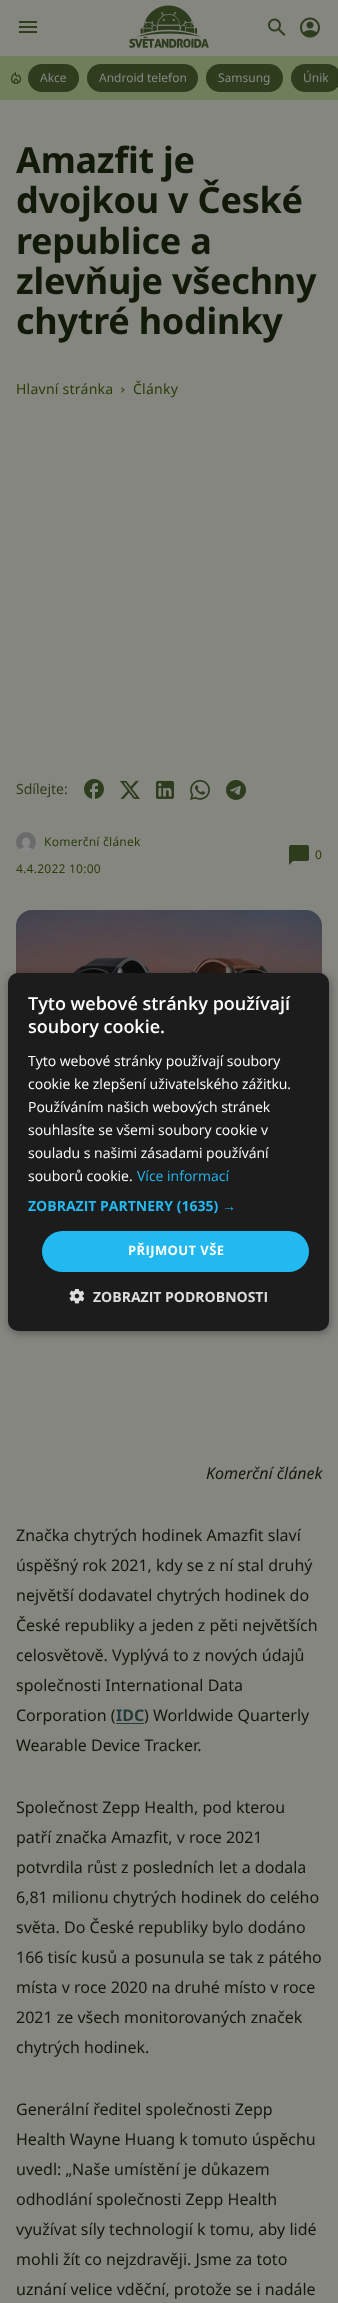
<!DOCTYPE html>
<meta charset="utf-8">
<style>body { margin: 0 } canvas { display: block }</style>
<canvas id="canvas" width="338" height="2303"></canvas>
<script type="module">
  const canvas = document.getElementById("canvas");
  const g = canvas.getContext("2d");
  g.miterLimit = 4;
  g.fontKerning = "normal";
  function drawText(s, x, y, [font, color]) {
    g.font = font;
    g.fillStyle = color;
    g.fillText(s, x, y);
  }
  function fillBox(x, y, w, h, color) {
    g.fillStyle = color;
    g.fillRect(x, y, w, h);
  }
  function fillRounded(x, y, w, h, r, color) {
    g.fillStyle = color;
    g.beginPath();
    g.roundRect(x, y, w, h, r);
    g.fill();
  }
  async function drawPicture(src, x, y, w, h) {
    const img = new Image();
    img.src = src;
    await img.decode();
    g.drawImage(img, x, y, w, h);
  }

  const s1 = ["12px Noto Sans", "#888888"];
  const s2 = ["bold 36px Noto Sans", "#111909"];
  const s3 = ["14px Noto Sans", "#293D09"];
  const s4 = ["14px Noto Sans", "#2F3C1E"];
  const s5 = ["12px Noto Sans", "#293D09"];
  const s6 = ["italic 16px Noto Sans", "#111909"];
  const s7 = ["16px Noto Sans", "#111909"];
  const s8 = ["bold 16px Noto Sans", "#253C3A"];
  const s9 = ["600 18px Open Sans", "#FFFFFF"];
  const s10 = ["14px Open Sans", "#FFFFFF"];
  const s11 = ["14px Open Sans", "#22B8F0"];
  const s12 = ["bold 14px Open Sans", "#22B8F0"];
  const s13 = ["bold 14px Liberation Sans", "#22B8F0"];
  const s14 = ["bold 13px Open Sans", "#FFFFFF"];
  const s15 = ["bold 14px Open Sans", "#DDDDDD"];

  fillBox(0, 0, 338, 2303, "#6F7F5B");
  fillBox(0, 0, 338, 56, "#858680");
  await drawPicture("pic1.png", 19, 21, 18, 12);
  await drawPicture("pic2.png", 129, 5, 80, 43);
  await drawPicture("pic3.png", 268, 18, 18, 18);
  await drawPicture("pic4.png", 300, 17, 20, 21);
  await drawPicture("pic5.png", 11, 72, 10, 12);
  fillRounded(28, 64, 51, 28, 14, "#2F3C1E");
  drawText("Akce", 40, 82, s1);
  fillRounded(87, 64, 111, 28, 14, "#2F3C1E");
  drawText("Android telefon", 99, 82, s1);
  fillRounded(206, 64, 77, 28, 14, "#2F3C1E");
  drawText("Samsung", 218, 82, s1);
  fillRounded(291, 64, 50, 28, 14, "#2F3C1E");
  drawText("Únik", 303, 82, s1);
  fillBox(0, 100, 338, 2203, "#858680");
  g.letterSpacing = "-0.25px";
  drawText("Amazfit je", 16, 173, s2);
  drawText("dvojkou v České", 16, 213, s2);
  drawText("republice a", 16, 254, s2);
  drawText("zlevňuje všechny", 16, 294, s2);
  drawText("chytré hodinky", 16, 334, s2);
  g.letterSpacing = "0.25px";
  drawText("Hlavní stránka", 16, 394, s3);
  await drawPicture("pic6.png", 121, 387, 4, 6);
  drawText("Články", 133, 394, s3);
  g.letterSpacing = "0px";
  drawText("Sdílejte:", 16, 794, s4);
  await drawPicture("pic7.png", 84, 779, 20, 20);
  await drawPicture("pic8.png", 120, 780, 20, 19);
  await drawPicture("pic9.png", 156, 780, 18, 19);
  await drawPicture("pic10.png", 190, 780, 20, 20);
  await drawPicture("pic11.png", 226, 780, 20, 20);
  await drawPicture("pic12.png", 16, 832, 20, 20);
  g.letterSpacing = "0.25px";
  drawText("Komerční článek", 44, 846, s5);
  drawText("4.4.2022 10:00", 16, 873, s5);
  await drawPicture("pic13.png", 289, 845, 20, 20);
  drawText("0", 315, 859, s5);
  await drawPicture("pic14.png", 16, 910, 306, 64);
  g.letterSpacing = "0px";
  drawText("Komerční článek", 206, 1479, s6);
  drawText("Značka chytrých hodinek Amazfit slaví", 16, 1541, s7);
  drawText("úspěšný rok 2021, kdy se z ní stal druhý", 16, 1571, s7);
  drawText("největší dodavatel chytrých hodinek do", 16, 1601, s7);
  drawText("České republiky a jeden z pěti největších", 16, 1631, s7);
  drawText("celosvětově. Vyplývá to z nových údajů", 16, 1661, s7);
  drawText("společnosti International Data", 16, 1691, s7);
  drawText("Corporation (", 16, 1721, s7);
  drawText("IDC", 116, 1721, s8);
  fillBox(116, 1723, 28, 1, "#253C3A");
  drawText(") Worldwide Quarterly", 144, 1721, s7);
  drawText("Wearable Device Tracker.", 16, 1751, s7);
  drawText("Společnost Zepp Health, pod kterou", 16, 1813, s7);
  drawText("patří značka Amazfit, v roce 2021", 16, 1843, s7);
  drawText("potvrdila růst z posledních let a dodala", 16, 1873, s7);
  drawText("6,81 milionu chytrých hodinek do celého", 16, 1903, s7);
  drawText("světa. Do České republiky bylo dodáno", 16, 1933, s7);
  drawText("166 tisíc kusů a posunula se tak z pátého", 16, 1963, s7);
  drawText("místa v roce 2020 na druhé místo v roce", 16, 1993, s7);
  drawText("2021 ze všech monitorovaných značek", 16, 2023, s7);
  drawText("chytrých hodinek.", 16, 2053, s7);
  drawText("Generální ředitel společnosti Zepp", 16, 2115, s7);
  drawText("Health Wayne Huang k tomuto úspěchu", 16, 2145, s7);
  drawText("uvedl: „Naše umístění je důkazem", 16, 2175, s7);
  drawText("odhodlání společnosti Zepp Health", 16, 2205, s7);
  drawText("využívat síly technologií k tomu, aby lidé", 16, 2235, s7);
  drawText("mohli žít co nejzdravěji. Jsme za toto", 16, 2265, s7);
  drawText("uznání velice vděční, protože se i nadále", 16, 2295, s7);
  g.fillStyle = "rgba(0, 0, 0, 0.35)";
  g.filter = "blur(4px)";
  g.beginPath();
  g.roundRect(9, 975, 321, 358, 10);
  g.fill();
  g.filter = "none";
  fillRounded(8, 973, 321, 358, 10, "#1C1C1C");
  drawText("Tyto webové stránky používají", 28, 1010, s9);
  drawText("soubory cookie.", 28, 1033, s9);
  drawText("Tyto webové stránky používají soubory", 28, 1066, s10);
  drawText("cookie ke zlepšení uživatelského zážitku.", 28, 1089, s10);
  drawText("Používáním našich webových stránek", 28, 1112, s10);
  drawText("souhlasíte se všemi soubory cookie v", 28, 1135, s10);
  drawText("souladu s našimi zásadami používání", 28, 1158, s10);
  drawText("souborů cookie.", 28, 1181, s10);
  drawText("Více informací", 137, 1181, s11);
  drawText("ZOBRAZIT PARTNERY (1635)", 28, 1211, s12);
  drawText("→", 222, 1211, s13);
  fillRounded(42, 1231, 267, 41, 20.5, "#22B8F0");
  g.letterSpacing = "0.4px";
  drawText("PŘIJMOUT VŠE", 128, 1255, s14);
  await drawPicture("pic15.png", 69, 1289, 15, 15);
  g.letterSpacing = "0px";
  drawText("ZOBRAZIT PODROBNOSTI", 93, 1302, s15);
</script>
